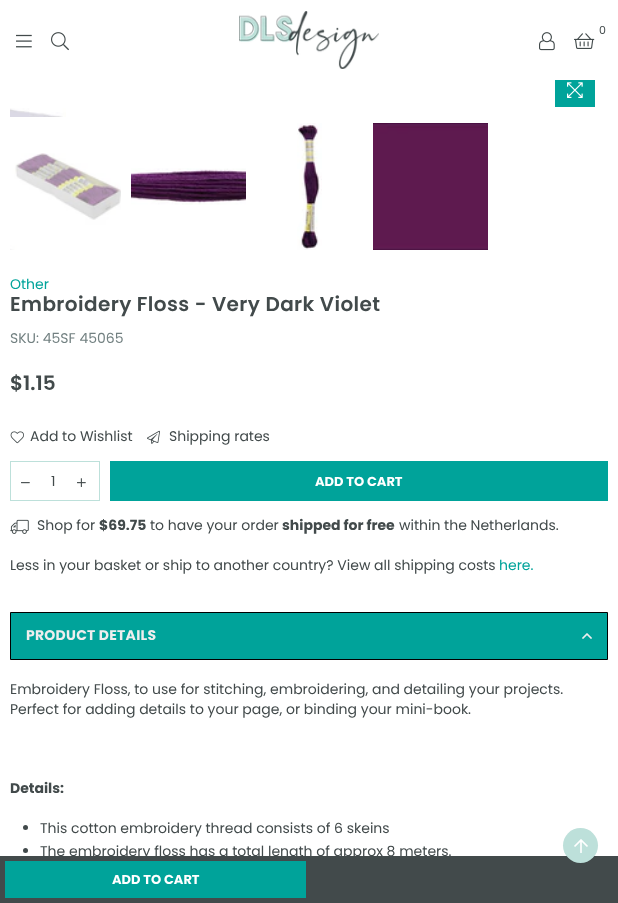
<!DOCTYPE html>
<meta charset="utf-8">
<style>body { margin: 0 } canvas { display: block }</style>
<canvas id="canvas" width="618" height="903"></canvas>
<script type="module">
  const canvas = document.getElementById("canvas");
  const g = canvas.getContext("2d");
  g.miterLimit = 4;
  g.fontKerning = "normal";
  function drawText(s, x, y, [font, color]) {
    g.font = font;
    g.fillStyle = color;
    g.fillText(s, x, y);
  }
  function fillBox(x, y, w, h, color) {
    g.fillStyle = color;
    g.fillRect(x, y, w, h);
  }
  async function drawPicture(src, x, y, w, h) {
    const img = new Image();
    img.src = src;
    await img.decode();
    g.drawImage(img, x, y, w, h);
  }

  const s1 = ["11px Poppins", "#424A4B"];
  const s2 = ["14px Poppins", "#00A39A"];
  const s3 = ["600 20px Poppins", "#424A4B"];
  const s4 = ["14px Poppins", "#728081"];
  const s5 = ["14px Poppins", "#424A4B"];
  const s6 = ["bold 13px Poppins", "#FFFFFF"];
  const s7 = ["bold 14px Poppins", "#424A4B"];
  const s8 = ["bold 14px Poppins", "#EEEEEE"];

  fillBox(0, 0, 618, 903, "#FFFFFF");
  await drawPicture("pic1.png", 239, 11, 140, 58);
  drawText("0", 599, 34, s1);
  await drawPicture("pic2.png", 574, 33, 21, 16);
  await drawPicture("pic3.png", 539, 32, 16, 19);
  await drawPicture("pic4.png", 16, 34, 16, 14);
  await drawPicture("pic5.png", 51, 32, 18, 19);
  fillBox(555, 80, 40, 27, "#00A39A");
  await drawPicture("pic6.png", 567, 82, 16, 16);
  await drawPicture("pic7.png", 10, 108, 56, 9);
  await drawPicture("pic8.png", 10, 153, 111, 97);
  await drawPicture("pic9.png", 131, 168, 115, 37);
  await drawPicture("pic10.png", 297, 123, 25, 127);
  await drawPicture("pic11.png", 373, 123, 115, 127);
  drawText("Other", 10, 289, s2);
  g.letterSpacing = "0.4px";
  drawText("Embroidery Floss - Very Dark Violet", 10, 311, s3);
  g.letterSpacing = "0px";
  drawText("SKU: 45SF 45065", 10, 343, s4);
  drawText("$1.15", 10, 390, s3);
  await drawPicture("pic12.png", 10, 431, 14, 13);
  drawText("Add to Wishlist", 30, 441, s5);
  await drawPicture("pic13.png", 147, 430, 13, 14);
  drawText("Shipping rates", 169, 441, s5);
  g.strokeStyle = "#BDE0DA";
  g.strokeRect(10.5, 461.5, 89, 39);
  await drawPicture("pic14.png", 21, 482, 9, 2);
  drawText("1", 51, 486, s5);
  await drawPicture("pic15.png", 77, 478, 9, 9);
  fillBox(110, 461, 498, 40, "#00A39A");
  drawText("ADD TO CART", 315, 486, s6);
  await drawPicture("pic16.png", 10, 519, 19, 15);
  drawText("Shop for", 37, 530, s5);
  drawText("$69.75", 99, 530, s7);
  drawText("to have your order", 150, 530, s5);
  drawText("shipped for free", 282, 530, s7);
  drawText("within the Netherlands.", 399, 530, s5);
  drawText("Less in your basket or ship to another country? View all shipping costs", 10, 570, s5);
  drawText("here.", 499, 570, s2);
  g.beginPath();
  g.rect(10.5, 612.5, 597, 47);
  g.fill();
  g.strokeStyle = "#000000";
  g.stroke();
  g.letterSpacing = "0.25px";
  drawText("PRODUCT DETAILS", 26, 640, s8);
  await drawPicture("pic17.png", 582, 633, 10, 6);
  g.letterSpacing = "0px";
  drawText("Embroidery Floss, to use for stitching, embroidering, and detailing your projects.", 10, 694, s5);
  drawText("Perfect for adding details to your page, or binding your mini-book.", 10, 714, s5);
  drawText("Details:", 10, 793, s7);
  g.beginPath();
  g.arc(25.5, 827.5, 2.5, 0, Math.PI * 2);
  g.fill();
  drawText("This cotton embroidery thread consists of 6 skeins", 40, 833, s5);
  g.beginPath();
  g.arc(25.5, 850.5, 2.5, 0, Math.PI * 2);
  g.fill();
  drawText("The embroidery floss has a total length of approx 8 meters.", 40, 856, s5);
  fillBox(0, 856, 618, 47, "#424A4B");
  fillBox(5, 861, 301, 37, "#00A39A");
  drawText("ADD TO CART", 112, 884, s6);
  g.fillStyle = "#BDE0DA";
  g.beginPath();
  g.arc(580.5, 845.5, 17.5, 0, Math.PI * 2);
  g.fill();
  await drawPicture("pic18.png", 574, 839, 14, 14);
</script>
